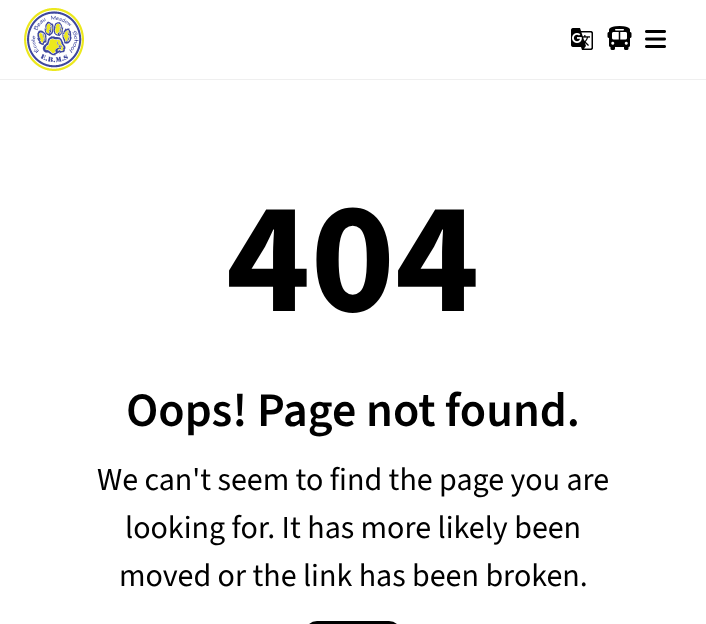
<!DOCTYPE html>
<meta charset="utf-8">
<style>body { margin: 0 } canvas { display: block }</style>
<canvas id="canvas" width="706" height="624"></canvas>
<script type="module">
  const canvas = document.getElementById("canvas");
  const g = canvas.getContext("2d");
  g.miterLimit = 4;
  g.fontKerning = "normal";
  function drawText(s, x, y, [font, color]) {
    g.font = font;
    g.fillStyle = color;
    g.fillText(s, x, y);
  }
  function fillBox(x, y, w, h, color) {
    g.fillStyle = color;
    g.fillRect(x, y, w, h);
  }
  function fillRounded(x, y, w, h, r, color) {
    g.fillStyle = color;
    g.beginPath();
    g.roundRect(x, y, w, h, r);
    g.fill();
  }
  async function drawPicture(src, x, y, w, h) {
    const img = new Image();
    img.src = src;
    await img.decode();
    g.drawImage(img, x, y, w, h);
  }

  const s1 = ["bold 160px 'Source Sans 3'", "#000000"];
  const s2 = ["600 48px 'Source Sans 3'", "#000000"];
  const s3 = ["32px 'Source Sans 3'", "#000000"];

  fillBox(0, 0, 706, 624, "#FFFFFF");
  fillBox(0, 79, 706, 1, "#EFEFEF");
  await drawPicture("pic1.png", 24, 8, 60, 63);
  await drawPicture("pic2.png", 571, 28, 22, 22);
  await drawPicture("pic3.png", 607, 26, 25, 24);
  await drawPicture("pic4.png", 645, 30, 21, 18);
  drawText("404", 226, 311, s1);
  drawText("Oops! Page not found.", 126, 426, s2);
  drawText("We can't seem to find the page you are", 97, 490, s3);
  drawText("looking for. It has more likely been", 125, 538, s3);
  drawText("moved or the link has been broken.", 119, 586, s3);
  fillRounded(305, 621, 96, 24, 21, "#000000");
</script>
